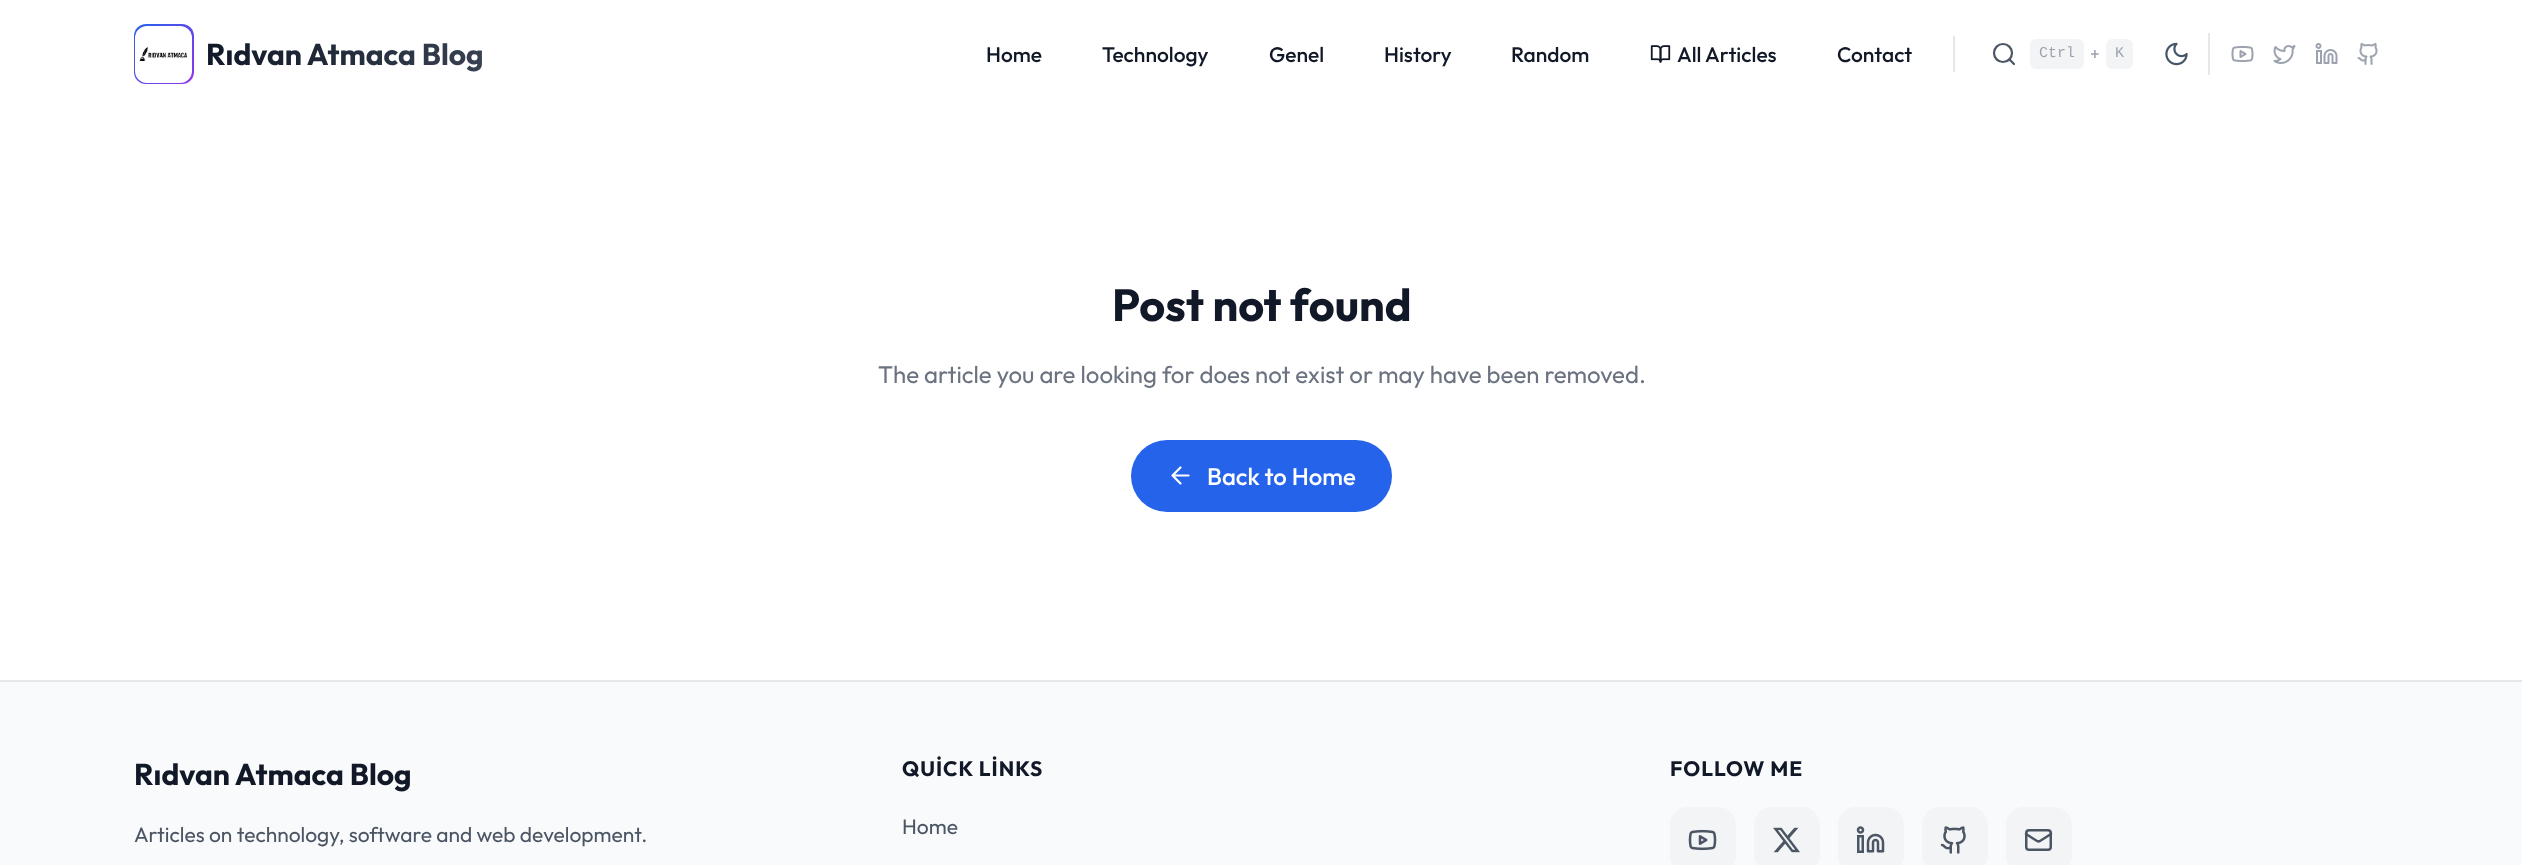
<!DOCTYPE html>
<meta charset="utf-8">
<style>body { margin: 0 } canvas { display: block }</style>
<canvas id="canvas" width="2522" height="865"></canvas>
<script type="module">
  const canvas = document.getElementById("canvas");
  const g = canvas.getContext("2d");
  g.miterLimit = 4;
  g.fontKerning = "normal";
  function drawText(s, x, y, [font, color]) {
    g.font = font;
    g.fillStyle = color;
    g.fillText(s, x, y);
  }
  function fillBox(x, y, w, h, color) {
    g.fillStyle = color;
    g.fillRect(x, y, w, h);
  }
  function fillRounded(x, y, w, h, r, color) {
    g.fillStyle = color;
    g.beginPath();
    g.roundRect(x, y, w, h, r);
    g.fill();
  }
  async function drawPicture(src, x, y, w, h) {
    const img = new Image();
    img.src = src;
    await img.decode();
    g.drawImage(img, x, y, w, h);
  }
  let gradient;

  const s1 = ["500 21px Outfit", "#111827"];
  const s2 = ["15px Liberation Mono", "#9CA3AF"];
  const s3 = ["18px Outfit", "#9CA3AF"];
  const s4 = ["bold 45px Outfit", "#111827"];
  const s5 = ["24px Outfit", "#6B7280"];
  const s6 = ["500 24px Outfit", "#FFFFFF"];
  const s7 = ["bold 30px Outfit", "#111827"];
  const s8 = ["21px Outfit", "#4B5563"];
  const s9 = ["bold 21px Outfit", "#111827"];

  fillBox(0, 0, 2522, 865, "#FFFFFF");
  gradient = g.createLinearGradient(134, 24, 194, 84);
  gradient.addColorStop(0, "#2563EB");
  gradient.addColorStop(1, "#9333EA");
  g.fillStyle = gradient;
  g.beginPath();
  g.roundRect(134, 24, 60, 60, 12);
  g.fill();
  fillRounded(135, 26, 57, 57, 12, "#FFFFFF");
  await drawPicture("pic1.png", 139, 46, 48, 15);
  g.font = "bold 30px Outfit";
  gradient = g.createLinearGradient(206, 54, 483, 54);
  gradient.addColorStop(0, "#111827");
  gradient.addColorStop(1, "#374151");
  g.fillStyle = gradient;
  g.fillText("Rıdvan Atmaca Blog", 206, 65);
  drawText("Home", 986, 62, s1);
  drawText("Technology", 1102, 62, s1);
  drawText("Genel", 1269, 62, s1);
  drawText("History", 1384, 62, s1);
  drawText("Random", 1511, 62, s1);
  await drawPicture("pic2.png", 1650, 45, 21, 18);
  drawText("All Articles", 1677, 62, s1);
  drawText("Contact", 1837, 62, s1);
  fillBox(1953, 36, 2, 36, "#E5E7EB");
  g.beginPath();
  g.arc(2003, 53, 9, 0, Math.PI * 2);
  g.strokeStyle = "#4B5563";
  g.lineWidth = 2.2;
  g.stroke();
  g.beginPath();
  g.moveTo(2014, 64);
  g.lineTo(2009.5, 59.5);
  g.lineCap = "round";
  g.lineJoin = "round";
  g.stroke();
  fillRounded(2030, 39, 54, 30, 6, "#F3F4F6");
  drawText("Ctrl", 2039, 57, s2);
  drawText("+", 2090, 60, s3);
  fillRounded(2106, 39, 27, 30, 6, "#F3F4F6");
  drawText("K", 2115, 57, s2);
  await drawPicture("pic3.png", 2165, 42, 23, 24);
  fillBox(2208, 33, 2, 42, "#E5E7EB");
  await drawPicture("pic4.png", 2231, 45, 23, 18);
  await drawPicture("pic5.png", 2273, 45, 23, 19);
  await drawPicture("pic6.png", 2315, 43, 23, 21);
  await drawPicture("pic7.png", 2357, 43, 21, 22);
  drawText("Post not found", 1112, 321, s4);
  drawText("The article you are looking for does not exist or may have been removed.", 878, 383, s5);
  fillRounded(1131, 440, 261, 72, 36, "#2563EB");
  g.beginPath();
  g.moveTo(1180.5, 483.5);
  g.lineTo(1172.5, 475.5);
  g.lineTo(1180.5, 467.5);
  g.moveTo(1188.5, 475.5);
  g.lineTo(1172.5, 475.5);
  g.strokeStyle = "#FFFFFF";
  g.stroke();
  drawText("Back to Home", 1207, 485, s6);
  fillBox(0, 682, 2522, 183, "#F9FAFB");
  fillBox(0, 680, 2522, 2, "#E5E7EB");
  drawText("Rıdvan Atmaca Blog", 134, 785, s7);
  drawText("Articles on technology, software and web development.", 134, 842, s8);
  g.letterSpacing = "1px";
  drawText("QUİCK LİNKS", 902, 776, s9);
  g.letterSpacing = "0px";
  drawText("Home", 902, 834, s8);
  g.letterSpacing = "1px";
  drawText("FOLLOW ME", 1670, 776, s9);
  fillRounded(1670, 807, 66, 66, 18, "#F3F4F6");
  await drawPicture("pic8.png", 1688, 829, 29, 22);
  fillRounded(1754, 807, 66, 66, 18, "#F3F4F6");
  await drawPicture("pic9.png", 1773, 827, 27, 26);
  fillRounded(1838, 807, 66, 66, 18, "#F3F4F6");
  await drawPicture("pic10.png", 1856, 826, 29, 27);
  fillRounded(1922, 807, 66, 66, 18, "#F3F4F6");
  await drawPicture("pic11.png", 1940, 826, 26, 28);
  fillRounded(2006, 807, 66, 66, 18, "#F3F4F6");
  g.beginPath();
  g.roundRect(2026.25, 830.25, 24.5, 19.5, 2.75);
  g.strokeStyle = "#4B5563";
  g.lineWidth = 2.5;
  g.lineJoin = "miter";
  g.stroke();
  g.beginPath();
  g.moveTo(2051, 834);
  g.lineTo(2040, 841);
  g.bezierCurveTo(2039, 841.5, 2038, 841.5, 2037, 841);
  g.lineTo(2026, 834);
  g.lineJoin = "round";
  g.stroke();
</script>
